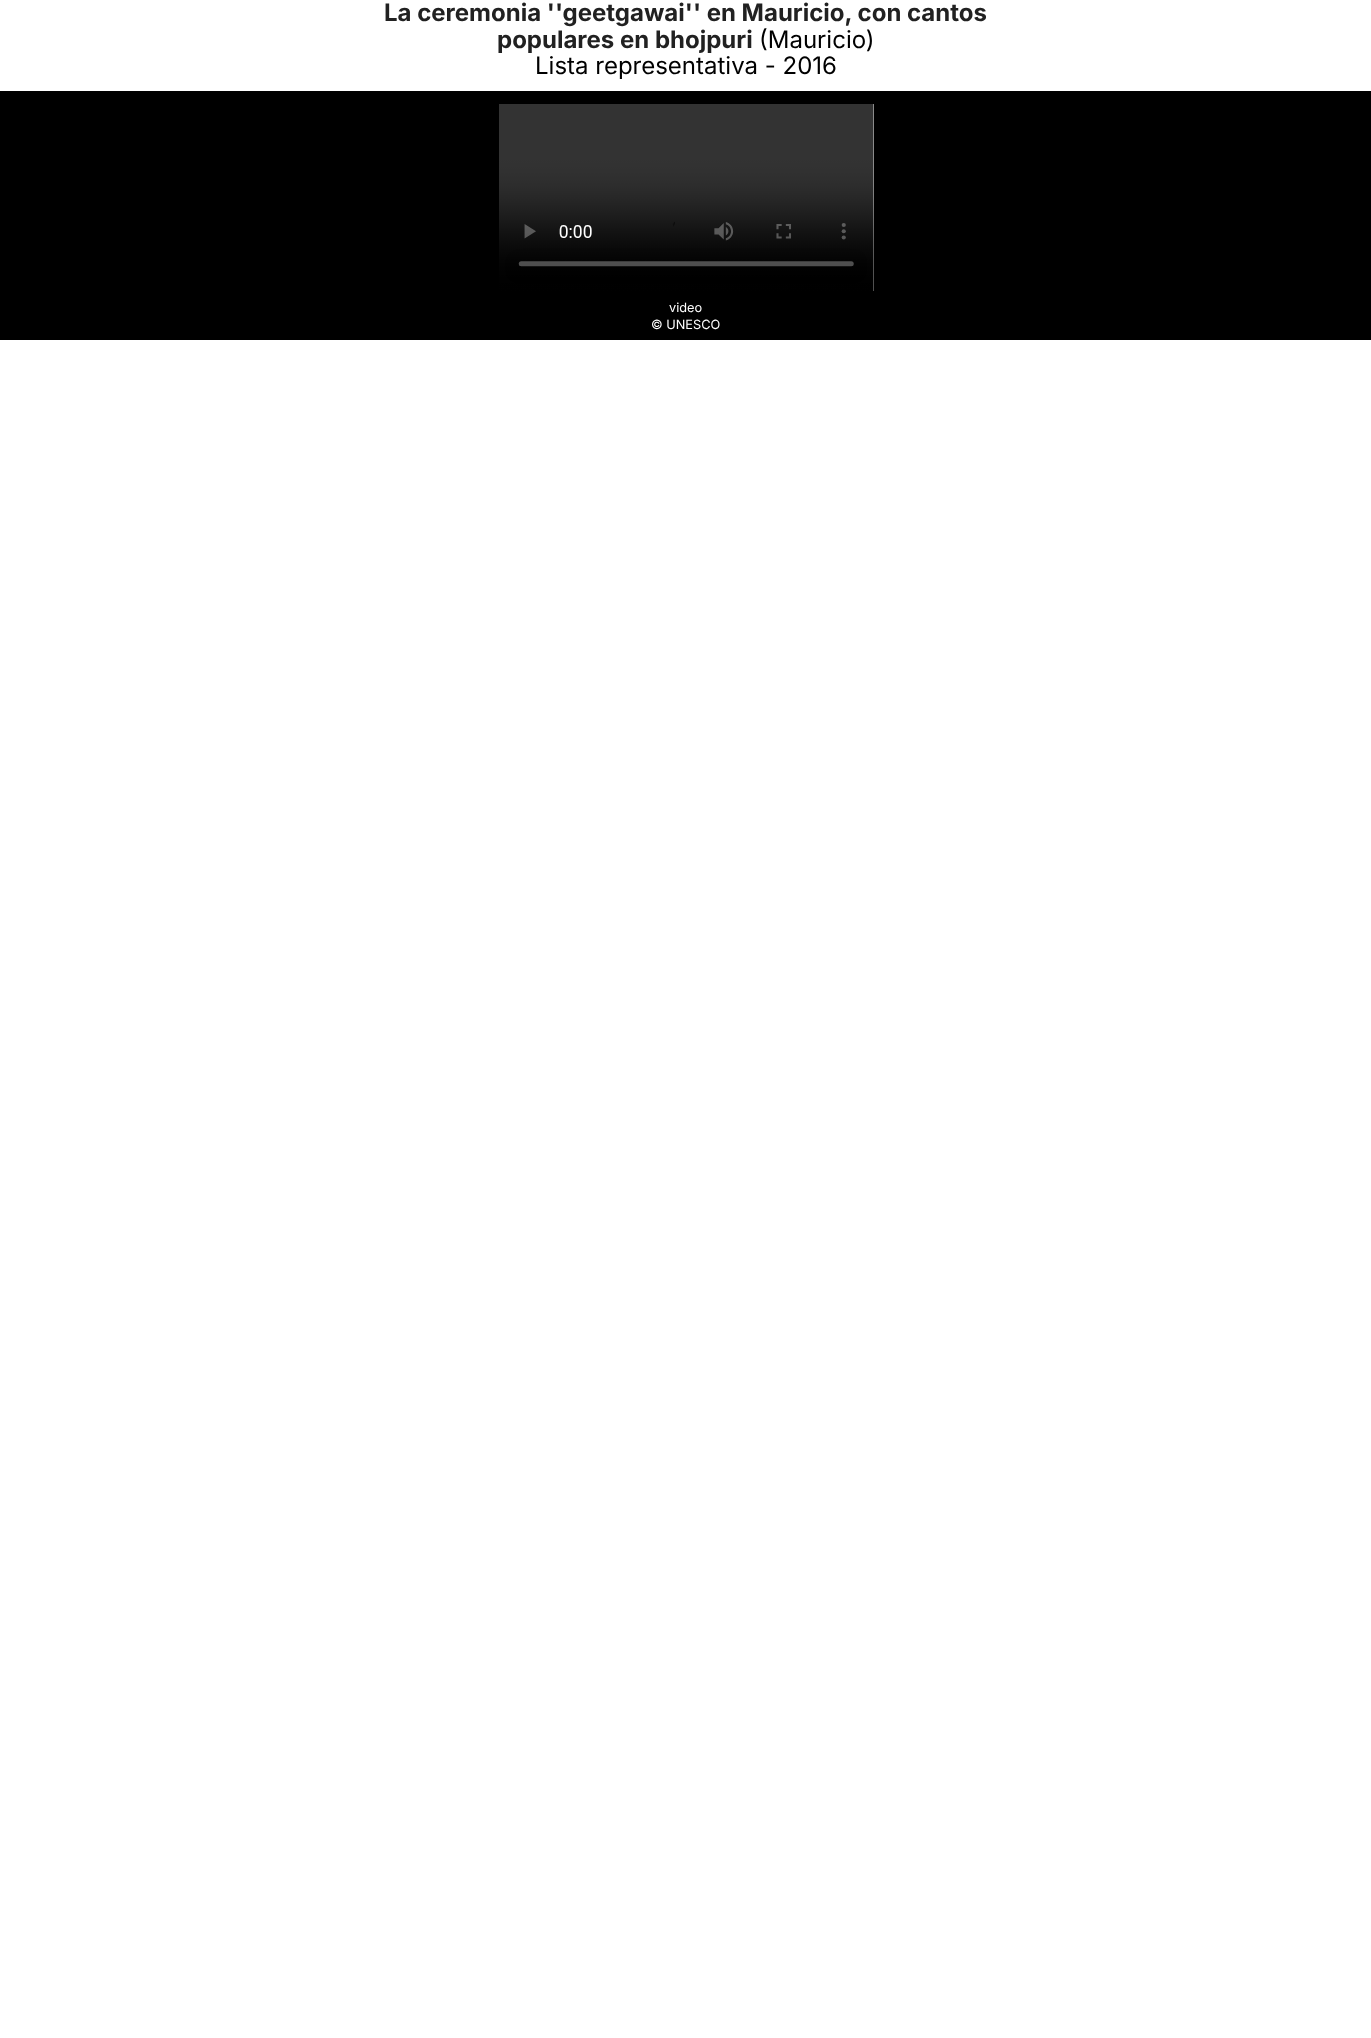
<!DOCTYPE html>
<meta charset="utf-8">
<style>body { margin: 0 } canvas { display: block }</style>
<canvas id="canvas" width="1371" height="2038"></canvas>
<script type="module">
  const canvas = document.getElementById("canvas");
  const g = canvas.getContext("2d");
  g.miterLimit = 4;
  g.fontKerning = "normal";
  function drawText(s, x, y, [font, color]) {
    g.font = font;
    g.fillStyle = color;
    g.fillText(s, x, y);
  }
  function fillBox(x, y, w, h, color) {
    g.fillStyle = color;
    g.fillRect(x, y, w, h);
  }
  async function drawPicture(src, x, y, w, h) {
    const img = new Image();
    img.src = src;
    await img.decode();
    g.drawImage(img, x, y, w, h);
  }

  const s1 = ["bold 24px Inter", "#212121"];
  const s2 = ["24px Inter", "#000000"];
  const s3 = ["12.75px Inter", "#FFFFFF"];

  fillBox(0, 0, 1371, 2038, "#FFFFFF");
  drawText("La ceremonia ''geetgawai'' en Mauricio, con cantos", 384, 21, s1);
  drawText("populares en bhojpuri", 497, 48, s1);
  drawText("(Mauricio)", 759, 48, s2);
  drawText("Lista representativa - 2016", 535, 74, s2);
  fillBox(0, 91, 1371, 249, "#000000");
  fillBox(873, 104, 1, 187, "#FFFFFF");
  await drawPicture("pic1.png", 499, 104, 375, 187);
  drawText("video", 669, 312, s3);
  drawText("© UNESCO", 651, 329, s3);
</script>
